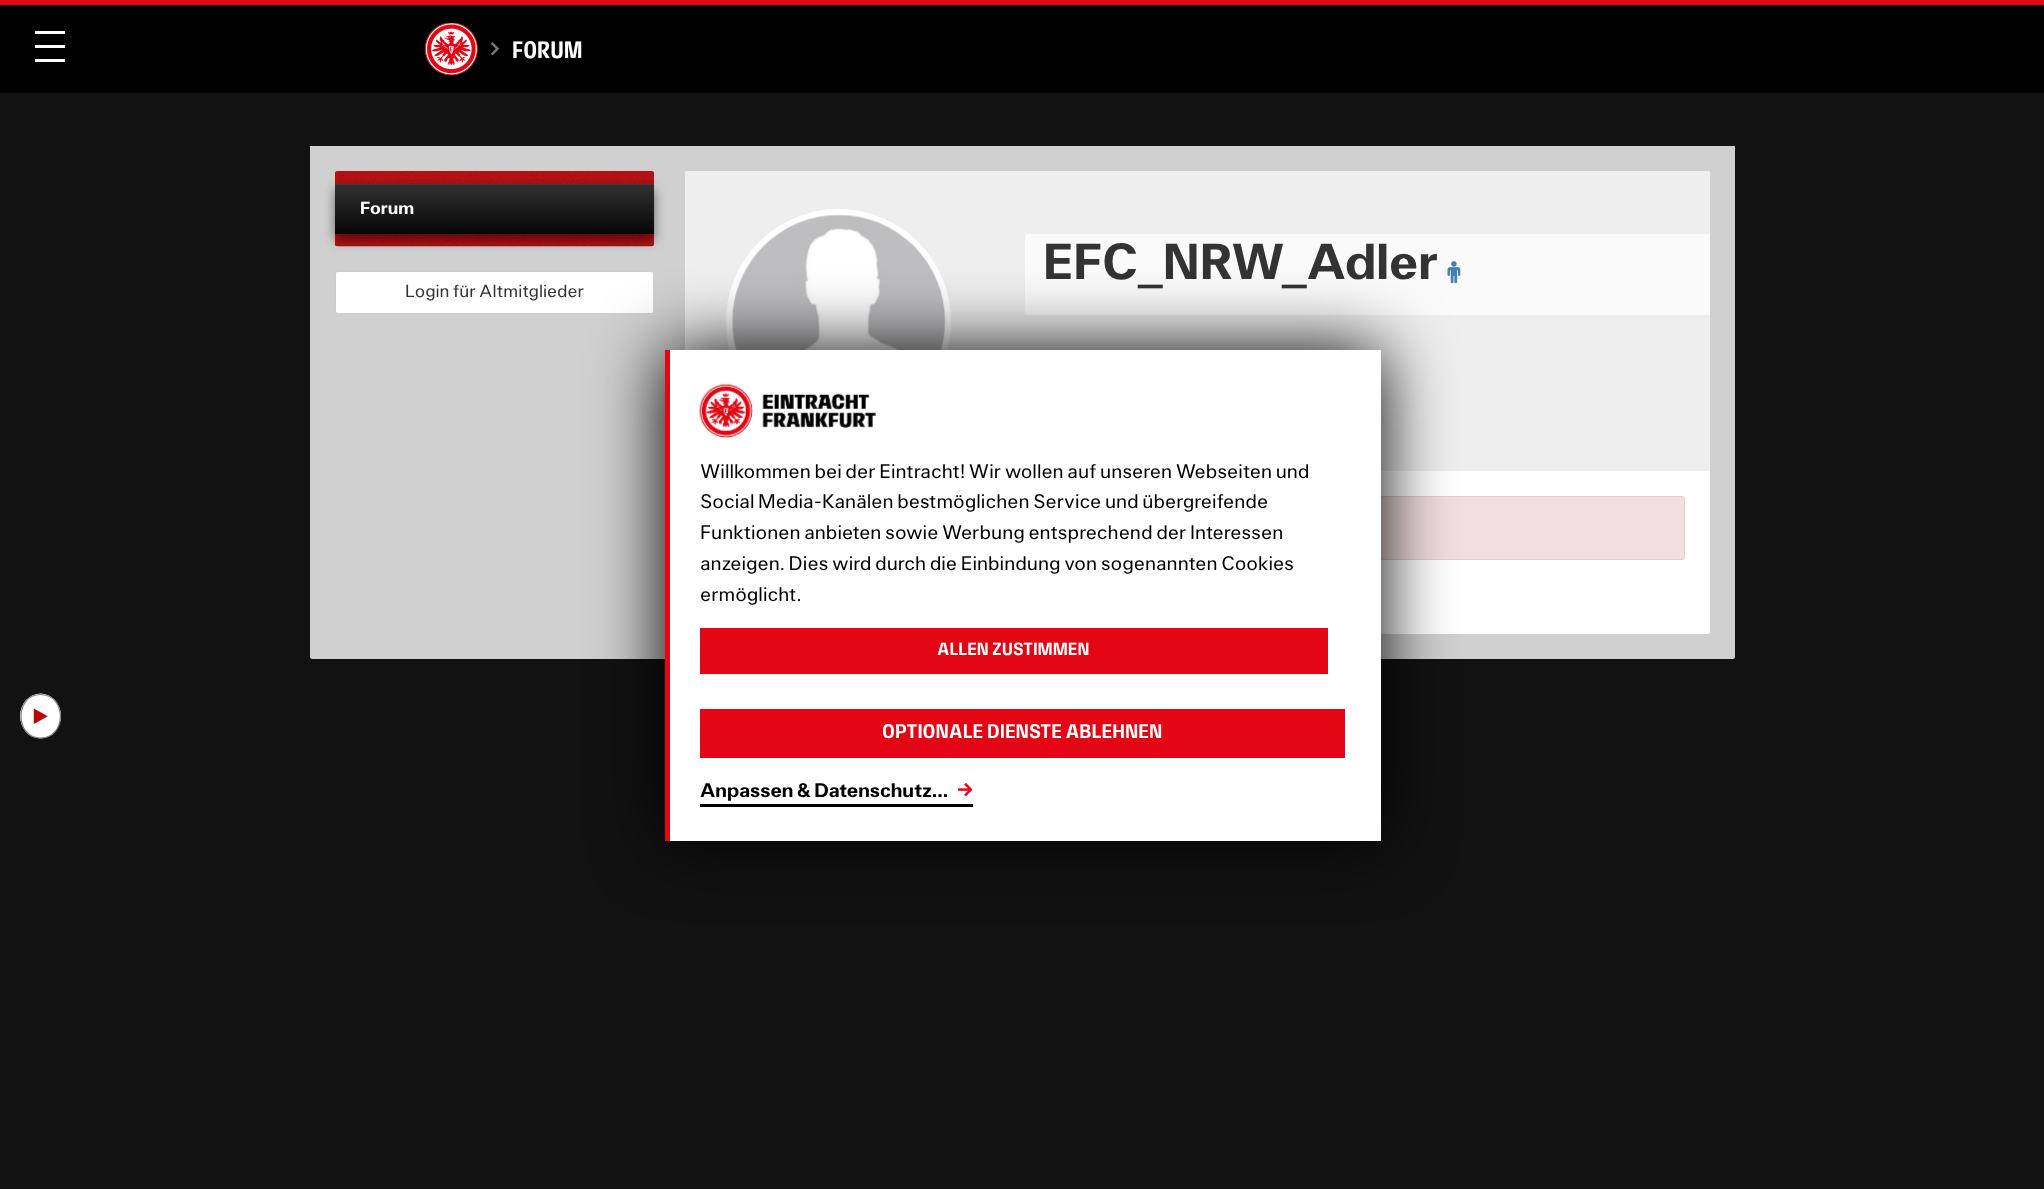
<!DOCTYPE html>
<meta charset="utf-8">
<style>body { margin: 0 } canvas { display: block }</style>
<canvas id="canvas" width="2044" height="1189"></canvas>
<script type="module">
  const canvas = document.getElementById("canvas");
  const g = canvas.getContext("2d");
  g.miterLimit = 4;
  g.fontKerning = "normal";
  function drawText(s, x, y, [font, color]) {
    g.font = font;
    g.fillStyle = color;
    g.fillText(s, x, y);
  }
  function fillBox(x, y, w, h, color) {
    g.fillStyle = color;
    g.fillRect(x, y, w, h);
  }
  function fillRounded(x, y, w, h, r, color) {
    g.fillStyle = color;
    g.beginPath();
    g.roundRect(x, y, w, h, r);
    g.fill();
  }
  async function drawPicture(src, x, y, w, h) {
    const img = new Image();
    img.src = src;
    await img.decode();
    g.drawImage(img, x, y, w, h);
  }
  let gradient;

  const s1 = ["23.5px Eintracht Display", "#FFFFFF"];
  const s2 = ["bold 17.5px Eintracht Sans", "#FFFFFF"];
  const s3 = ["17.5px Eintracht Sans", "#333333"];
  const s4 = ["bold 50px Eintracht Sans", "#333333"];
  const s5 = ["19.55px Eintracht Sans", "#000000"];
  const s6 = ["17.5px 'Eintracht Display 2'", "#FFFFFF"];
  const s7 = ["19.55px 'Eintracht Display 2'", "#FFFFFF"];
  const s8 = ["bold 19.55px Eintracht Sans", "#000000"];

  fillBox(0, 0, 2044, 1189, "#121212");
  fillBox(0, 5, 2044, 88, "#000000");
  fillBox(35, 31, 30, 3, "#FFFFFF");
  fillBox(35, 45, 30, 3, "#FFFFFF");
  fillBox(35, 59, 30, 3, "#FFFFFF");
  fillBox(0, 0, 2044, 5, "#E30615");
  await drawPicture("pic1.png", 425, 23, 53, 52);
  await drawPicture("pic2.png", 490, 42, 10, 14);
  drawText("Forum", 512, 58, s1);
  g.fillStyle = "#D0D0D0";
  g.beginPath();
  g.roundRect(310, 146, 1425, 513, [0, 0, 2.5, 2.5]);
  g.fill();
  fillRounded(335, 171, 319, 75, 2.5, "#B70700");
  await drawPicture("pic3.png", 335, 171, 319, 76);
  g.fillStyle = "rgba(0, 0, 0, 0.5)";
  g.filter = "blur(6px)";
  g.beginPath();
  g.rect(335, 190, 319, 50);
  g.fill();
  g.filter = "none";
  gradient = g.createLinearGradient(494, 184, 494, 234);
  gradient.addColorStop(0, "#444444");
  gradient.addColorStop(0.02, "#303030");
  gradient.addColorStop(0.98, "#070707");
  gradient.addColorStop(1, "#000000");
  g.fillStyle = gradient;
  g.fillRect(335, 184, 319, 50);
  drawText("Forum", 360, 214, s2);
  g.beginPath();
  g.roundRect(335.5, 271.5, 318, 42, 2);
  g.fill();
  g.strokeStyle = "#CCCCCC";
  g.stroke();
  drawText("Login für Altmitglieder", 405, 297, s3);
  fillRounded(685, 171, 1025, 463, 2.5, "#FFFFFF");
  g.fillStyle = "#EEEEEE";
  g.beginPath();
  g.roundRect(685, 171, 1025, 300, [2.5, 2.5, 0, 0]);
  g.fill();
  g.beginPath();
  g.arc(838.5, 321.5, 109.5, 0, Math.PI * 2);
  g.strokeStyle = "#FFFFFF";
  g.lineWidth = 6;
  g.stroke();
  await drawPicture("pic4.png", 732, 214, 214, 136);
  g.fillStyle = "#FAFAFA";
  g.beginPath();
  g.roundRect(1025, 234, 685, 81, [2.5, 0, 0, 2.5]);
  g.fill();
  drawText("EFC_NRW_Adler", 1043, 279, s4);
  await drawPicture("pic5.png", 1447, 261, 14, 23);
  g.fillStyle = "#F2DEDE";
  g.beginPath();
  g.roundRect(710.5, 496.5, 974, 63, 2);
  g.fill();
  g.strokeStyle = "#EBCCD1";
  g.lineWidth = 1;
  g.stroke();
  g.fillStyle = "#FFFFFF";
  g.beginPath();
  g.ellipse(40.5, 716, 20.5, 22.5, 0, 0, Math.PI * 2);
  g.fill();
  g.beginPath();
  g.moveTo(40.5, 694.5);
  g.bezierCurveTo(67, 694.5, 67, 738, 40.5, 738);
  g.bezierCurveTo(14.5, 738, 14.5, 694.5, 40.5, 694.5);
  g.closePath();
  g.strokeStyle = "#808080";
  g.lineWidth = 1.2;
  g.stroke();
  await drawPicture("pic6.png", 33, 708, 15, 16);
  g.fillStyle = "#000000";
  g.filter = "blur(35px)";
  g.beginPath();
  g.rect(665, 350, 716, 491);
  g.fill();
  g.filter = "none";
  fillBox(670, 350, 711, 491, "#FFFFFF");
  fillBox(665, 350, 5, 491, "#E30615");
  await drawPicture("pic7.png", 698, 383, 178, 55);
  drawText("Willkommen bei der Eintracht! Wir wollen auf unseren Webseiten und", 700, 478, s5);
  drawText("Social Media-Kanälen bestmöglichen Service und übergreifende", 700, 508, s5);
  drawText("Funktionen anbieten sowie Werbung entsprechend der Interessen", 700, 539, s5);
  drawText("anzeigen. Dies wird durch die Einbindung von sogenannten Cookies", 700, 570, s5);
  drawText("ermöglicht.", 700, 601, s5);
  fillBox(700, 628, 628, 46, "#E30615");
  drawText("Allen zustimmen", 937, 655, s6);
  fillBox(700, 709, 645, 49, "#E30615");
  drawText("Optionale Dienste ablehnen", 882, 738, s7);
  await drawPicture("pic8.png", 958, 783, 15, 14);
  drawText("Anpassen & Datenschutz...", 700, 797, s8);
  fillBox(700, 804, 273, 3, "#000000");
</script>
